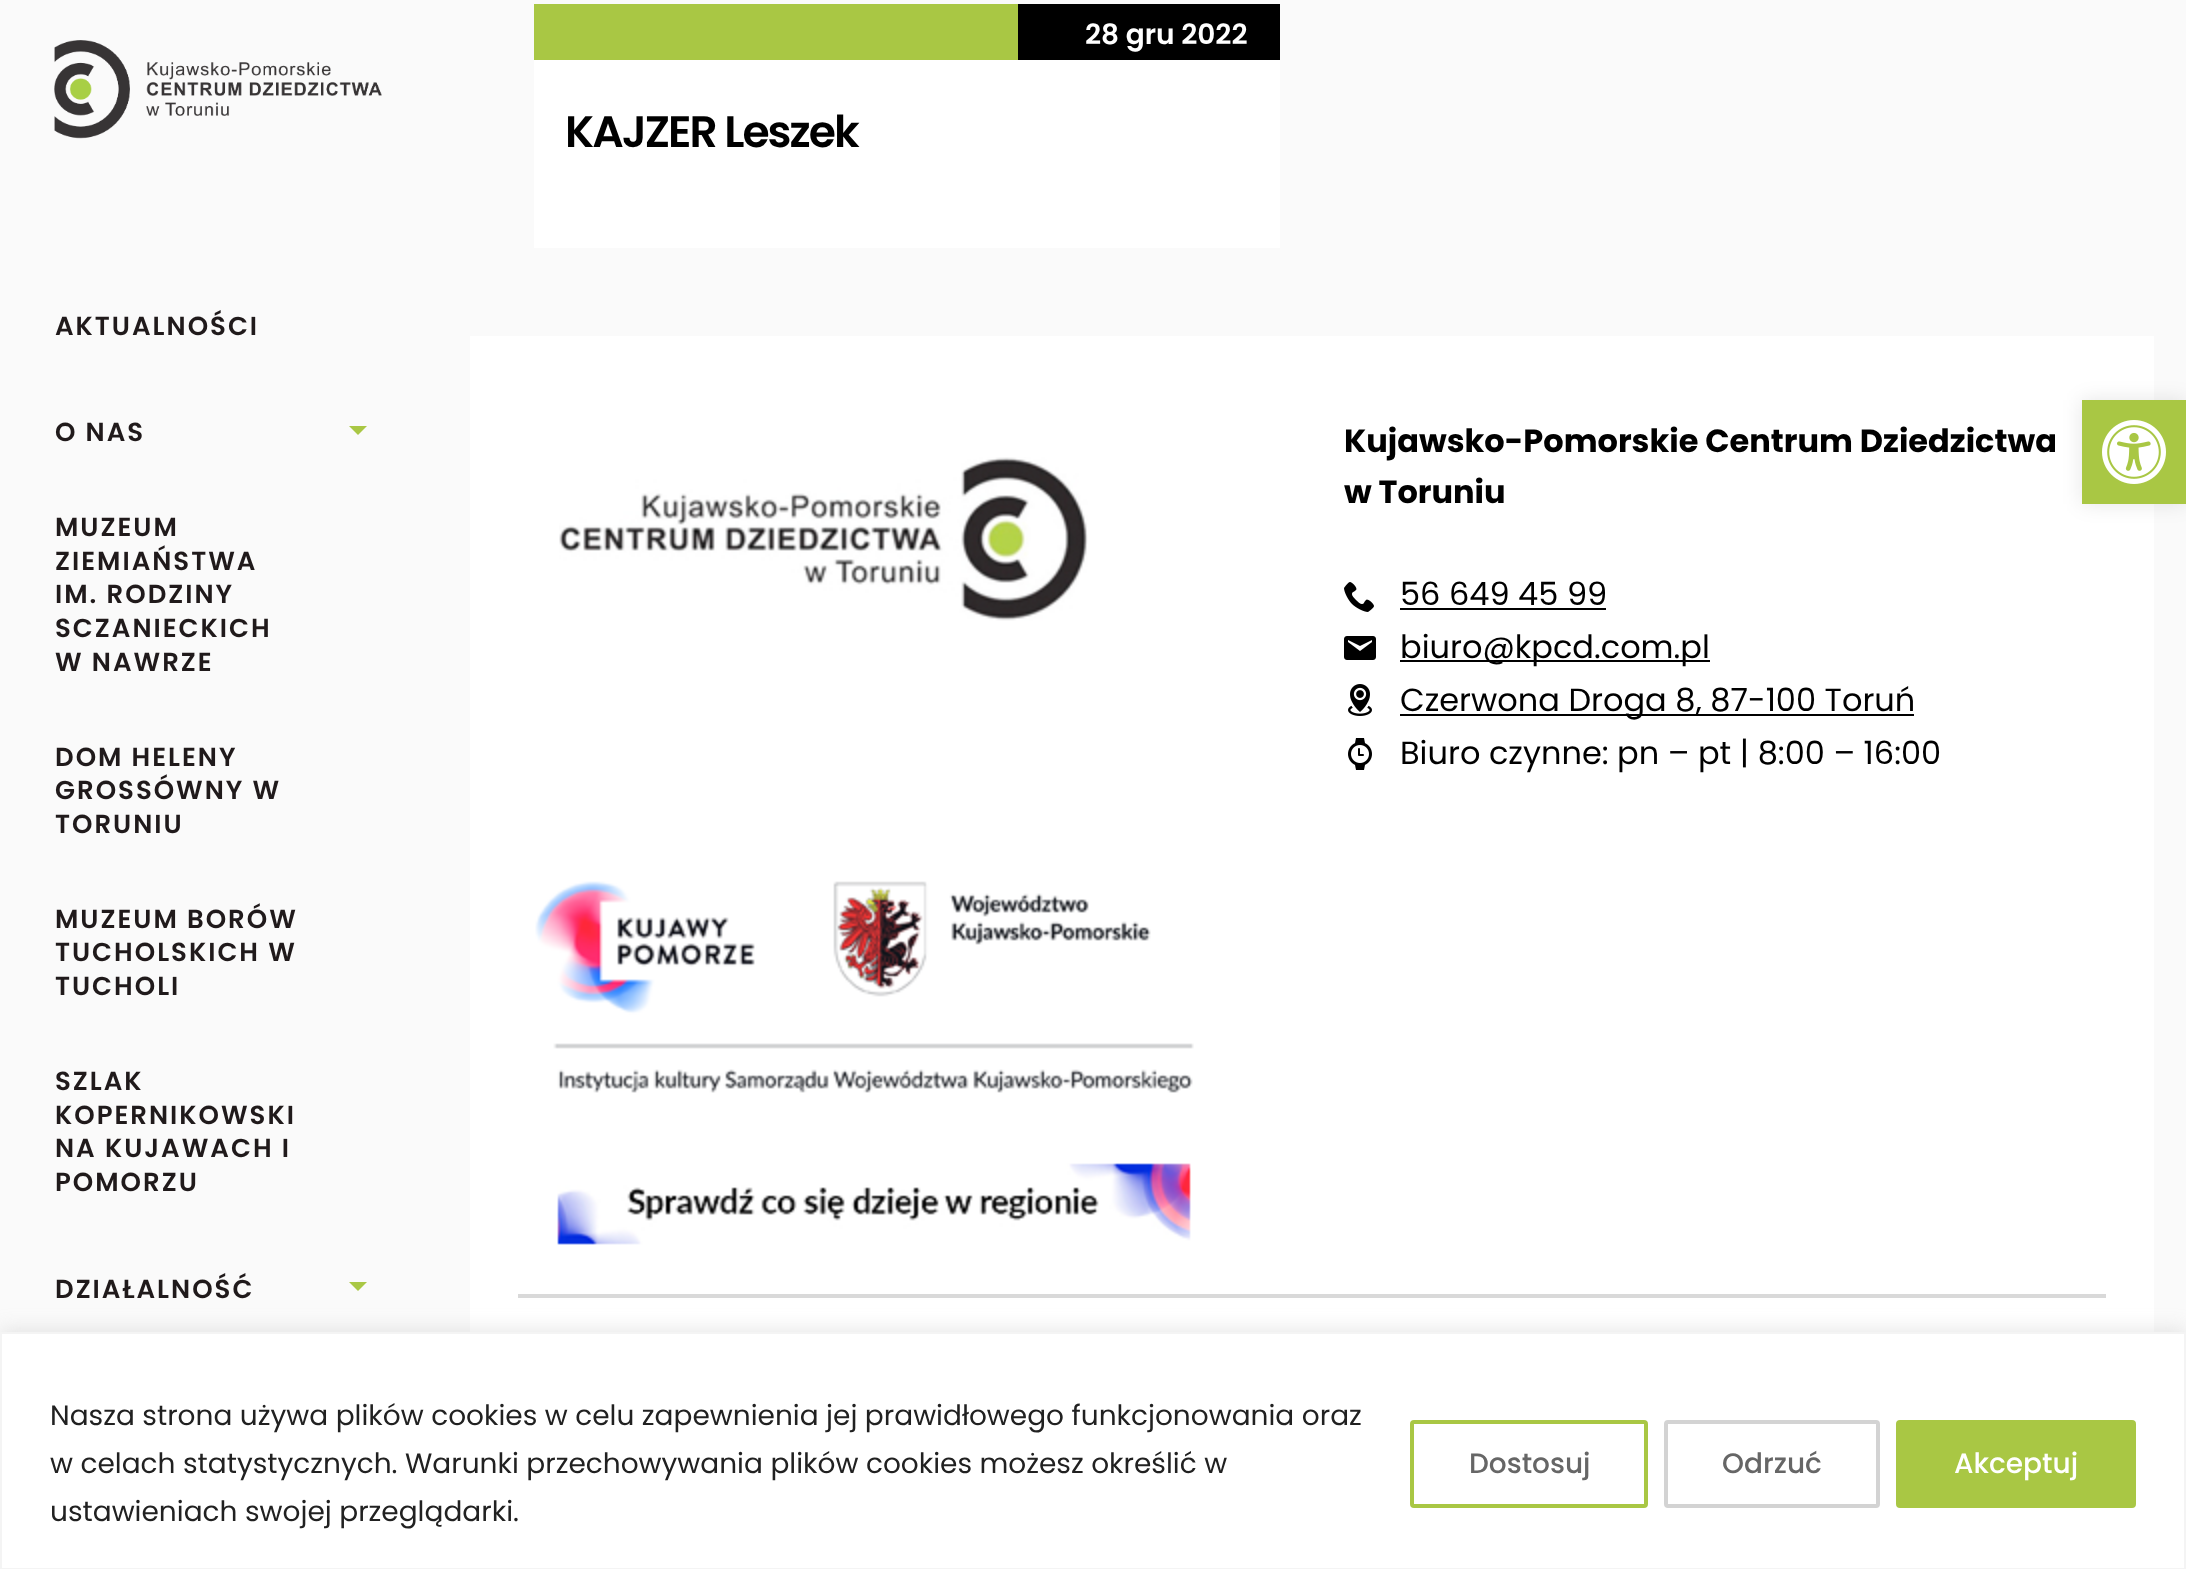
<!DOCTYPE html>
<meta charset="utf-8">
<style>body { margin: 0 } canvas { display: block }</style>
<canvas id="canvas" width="2186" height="1569"></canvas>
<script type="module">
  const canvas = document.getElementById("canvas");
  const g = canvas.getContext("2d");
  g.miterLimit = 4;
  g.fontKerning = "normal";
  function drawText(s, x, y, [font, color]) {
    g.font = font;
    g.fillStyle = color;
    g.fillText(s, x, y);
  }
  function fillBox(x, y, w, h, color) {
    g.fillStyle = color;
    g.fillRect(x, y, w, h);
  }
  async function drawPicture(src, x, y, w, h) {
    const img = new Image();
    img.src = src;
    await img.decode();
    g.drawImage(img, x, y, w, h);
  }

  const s1 = ["600 26px Poppins", "#201A1B"];
  const s2 = ["600 28px Poppins", "#FFFFFF"];
  const s3 = ["600 44px Poppins", "#000000"];
  const s4 = ["bold 32px Poppins", "#000000"];
  const s5 = ["32px Poppins", "#000000"];
  const s6 = ["28px Poppins", "#212121"];
  const s7 = ["500 28px Poppins", "#666666"];
  const s8 = ["500 28px Poppins", "#FFFFFF"];

  fillBox(0, 0, 2186, 1569, "#FAFAFA");
  await drawPicture("pic1.png", 54, 40, 328, 99);
  g.letterSpacing = "2px";
  drawText("AKTUALNOŚCI", 55, 335, s1);
  drawText("O NAS", 55, 441, s1);
  g.fillStyle = "#A9C744";
  g.beginPath();
  g.moveTo(349, 426);
  g.lineTo(358, 435);
  g.lineTo(367, 426);
  g.closePath();
  g.fill();
  drawText("MUZEUM", 55, 536, s1);
  drawText("ZIEMIAŃSTWA", 55, 570, s1);
  drawText("IM. RODZINY", 55, 603, s1);
  drawText("SCZANIECKICH", 55, 637, s1);
  drawText("W NAWRZE", 55, 671, s1);
  drawText("DOM HELENY", 55, 766, s1);
  drawText("GROSSÓWNY W", 55, 799, s1);
  drawText("TORUNIU", 55, 833, s1);
  drawText("MUZEUM BORÓW", 55, 928, s1);
  drawText("TUCHOLSKICH W", 55, 961, s1);
  drawText("TUCHOLI", 55, 995, s1);
  drawText("SZLAK", 55, 1090, s1);
  drawText("KOPERNIKOWSKI", 55, 1124, s1);
  drawText("NA KUJAWACH I", 55, 1157, s1);
  drawText("POMORZU", 55, 1191, s1);
  drawText("DZIAŁALNOŚĆ", 55, 1298, s1);
  g.fillStyle = "#A9C744";
  g.beginPath();
  g.moveTo(349, 1282);
  g.lineTo(358, 1291);
  g.lineTo(367, 1282);
  g.closePath();
  g.fill();
  fillBox(534, 60, 746, 188, "#FFFFFF");
  fillBox(534, 4, 484, 56, "#A9C744");
  fillBox(1018, 4, 262, 56, "#000000");
  g.letterSpacing = "0px";
  drawText("28 gru 2022", 1085, 44, s2);
  g.letterSpacing = "-2px";
  drawText("KAJZER Leszek", 565, 147, s3);
  fillBox(470, 336, 1684, 996, "#FFFFFF");
  await drawPicture("pic2.png", 559, 457, 529, 164);
  g.letterSpacing = "0px";
  drawText("Kujawsko-Pomorskie Centrum Dziedzictwa", 1344, 452, s4);
  drawText("w Toruniu", 1344, 503, s4);
  await drawPicture("pic3.png", 1344, 582, 30, 30);
  drawText("56 649 45 99", 1400, 605, s5);
  fillBox(1400, 608, 206, 2, "#000000");
  await drawPicture("pic4.png", 1344, 636, 32, 24);
  fillBox(1400, 660, 310, 2, "#000000");
  drawText("biuro@kpcd.com.pl", 1400, 658, s5);
  await drawPicture("pic5.png", 1348, 684, 24, 32);
  fillBox(1400, 714, 514, 2, "#000000");
  drawText("Czerwona Droga 8, 87-100 Toruń", 1400, 711, s5);
  await drawPicture("pic6.png", 1348, 738, 24, 32);
  drawText("Biuro czynne: pn – pt | 8:00 – 16:00", 1400, 764, s5);
  await drawPicture("pic7.png", 535, 881, 659, 364);
  fillBox(518, 1294, 1588, 4, "#D9D9D9");
  g.fillStyle = "rgba(0, 0, 0, 0.1)";
  g.filter = "blur(10px)";
  g.beginPath();
  g.rect(2082, 400, 104, 104);
  g.fill();
  g.filter = "none";
  fillBox(2082, 400, 104, 104, "#A9C744");
  await drawPicture("pic8.png", 2102, 420, 64, 64);
  g.fillStyle = "rgba(172, 171, 171, 0.3)";
  g.filter = "blur(10px)";
  g.beginPath();
  g.rect(0, 1330, 2186, 238);
  g.fill();
  g.filter = "none";
  g.fillStyle = "#FFFFFF";
  g.beginPath();
  g.rect(1, 1333, 2184, 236);
  g.fill();
  g.strokeStyle = "#F4F4F4";
  g.lineWidth = 2;
  g.stroke();
  drawText("Nasza strona używa plików cookies w celu zapewnienia jej prawidłowego funkcjonowania oraz", 50, 1425, s6);
  drawText("w celach statystycznych. Warunki przechowywania plików cookies możesz określić w", 50, 1473, s6);
  drawText("ustawieniach swojej przeglądarki.", 50, 1521, s6);
  g.beginPath();
  g.roundRect(1412, 1422, 234, 84, 2);
  g.strokeStyle = "#A9C744";
  g.lineWidth = 4;
  g.stroke();
  drawText("Dostosuj", 1469, 1473, s7);
  g.beginPath();
  g.roundRect(1666, 1422, 212, 84, 2);
  g.strokeStyle = "#D3D3D3";
  g.stroke();
  drawText("Odrzuć", 1722, 1473, s7);
  g.fillStyle = "#A9C744";
  g.beginPath();
  g.roundRect(1898, 1422, 236, 84, 2);
  g.fill();
  g.strokeStyle = "#A9C744";
  g.stroke();
  drawText("Akceptuj", 1954, 1473, s8);
</script>
